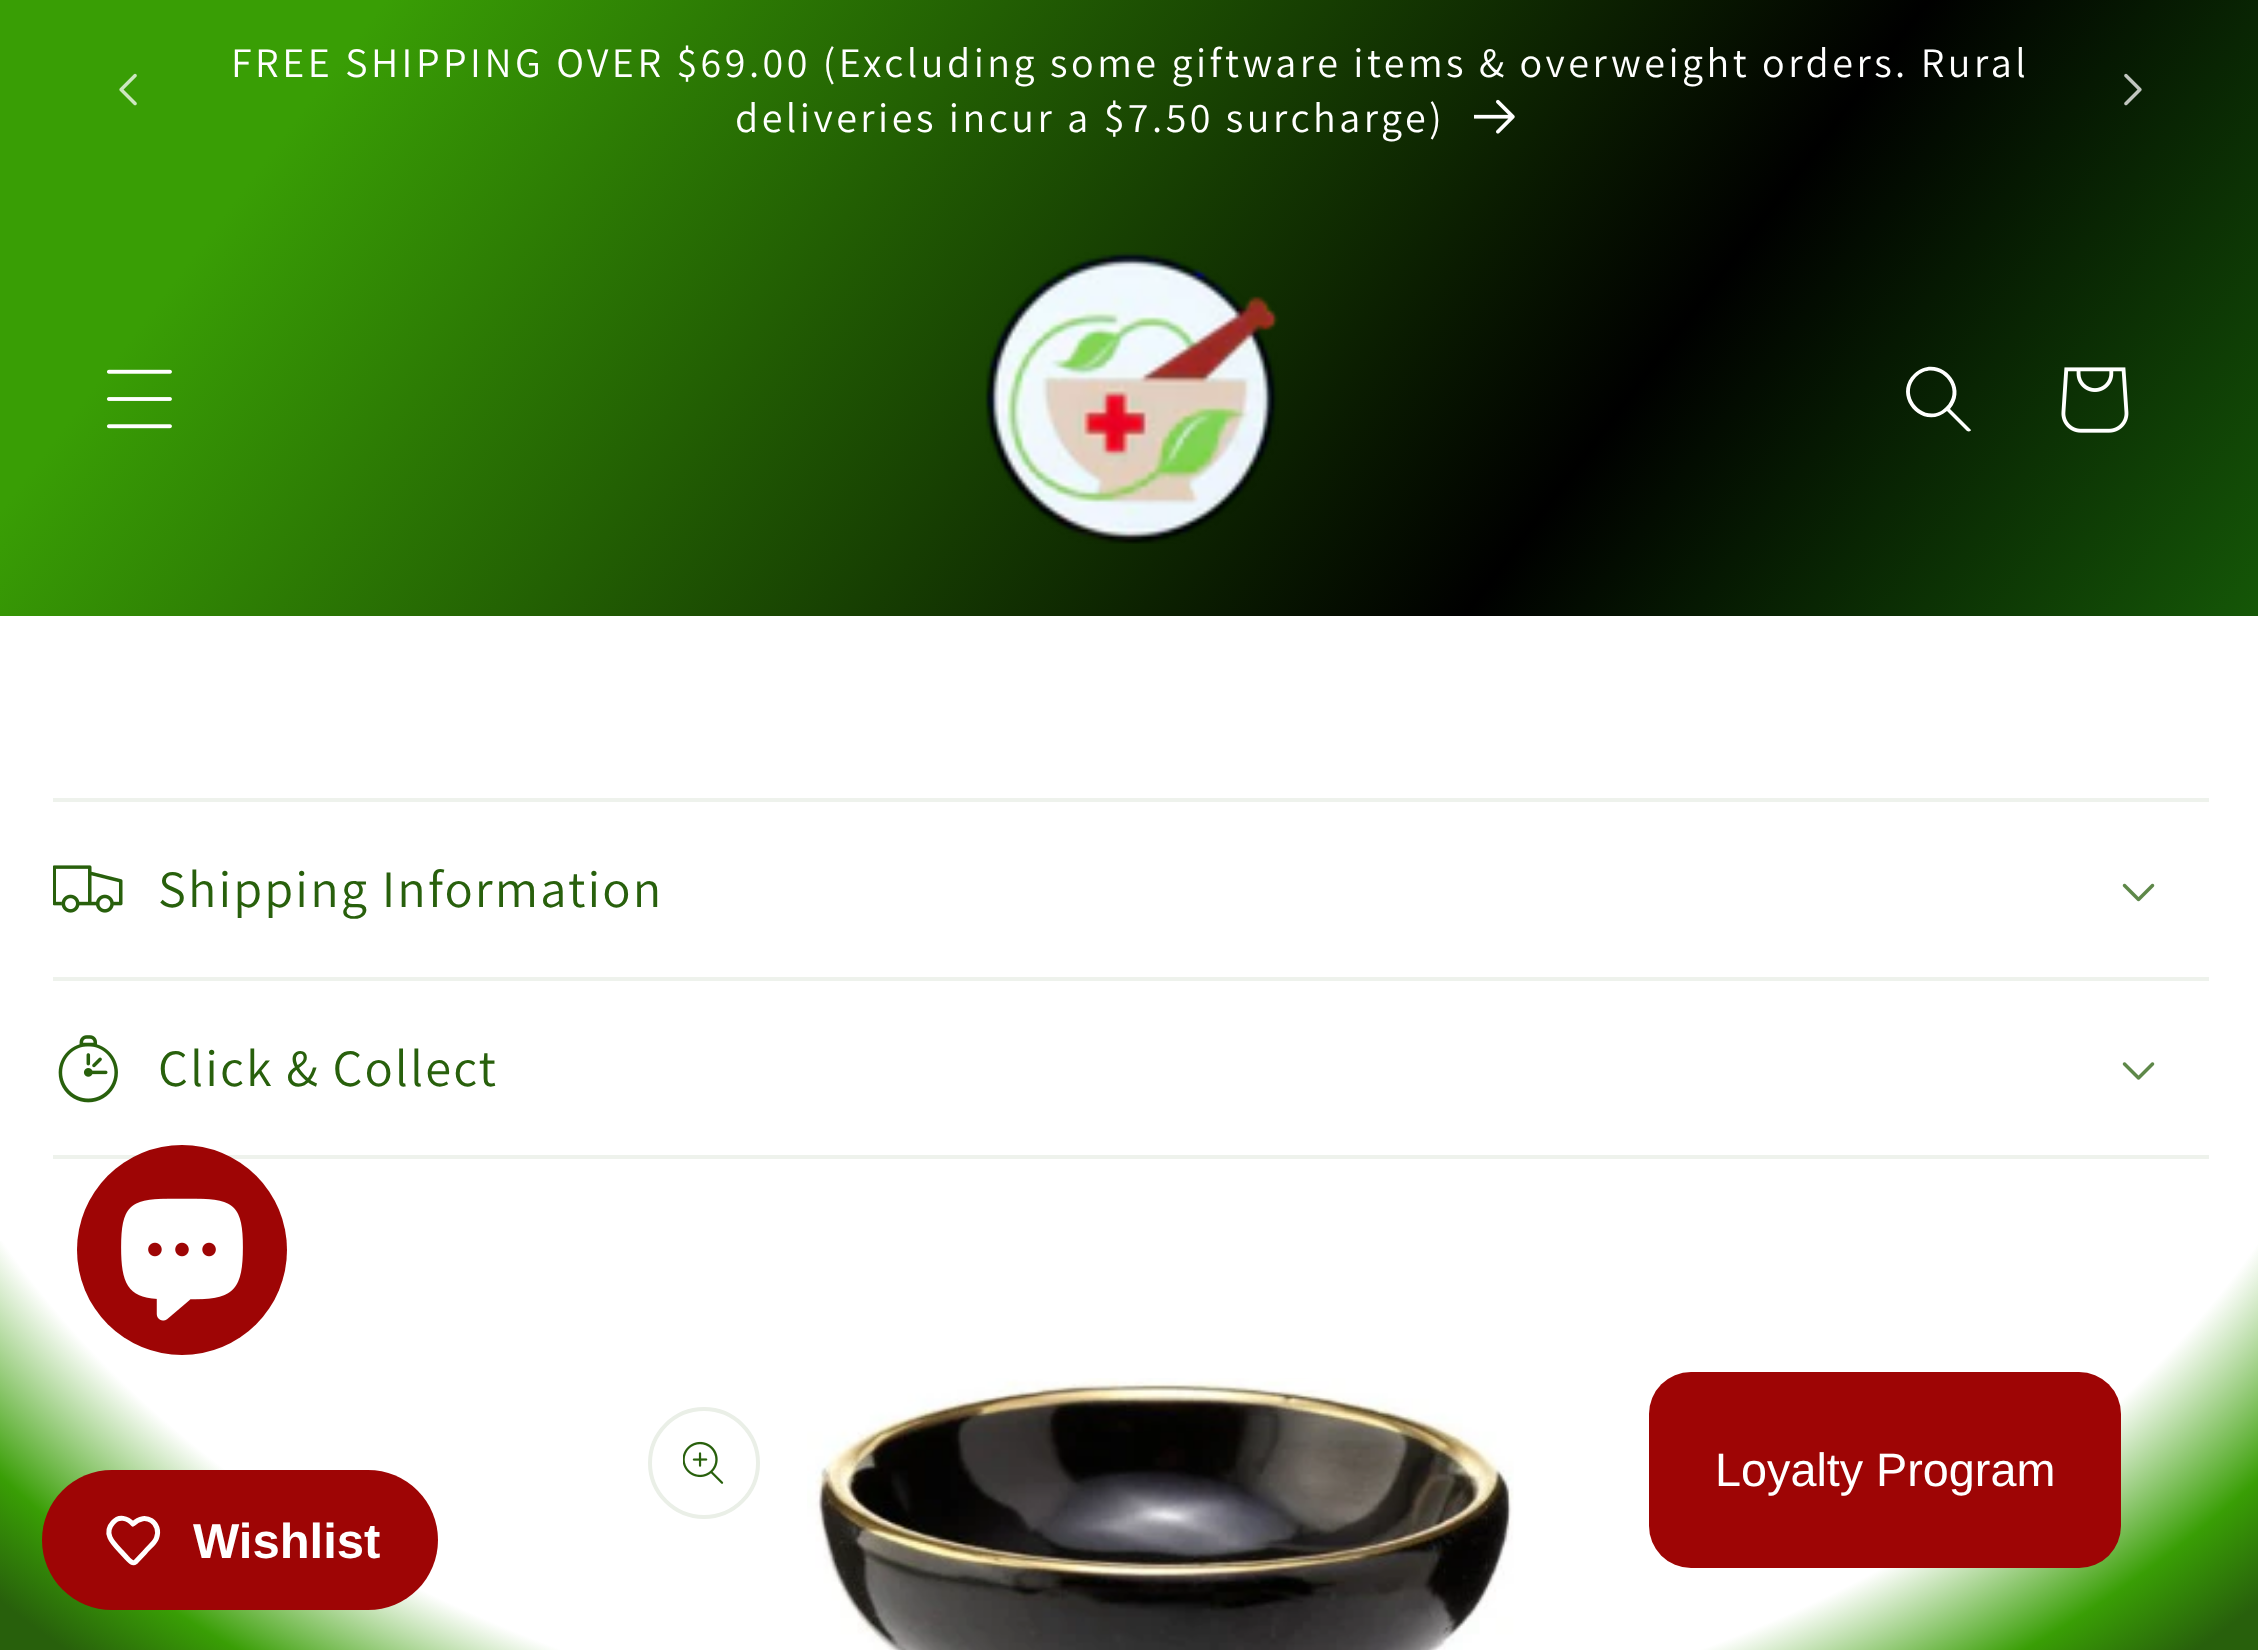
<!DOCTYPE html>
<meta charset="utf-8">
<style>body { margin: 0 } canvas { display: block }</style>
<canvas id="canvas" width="2258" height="1650"></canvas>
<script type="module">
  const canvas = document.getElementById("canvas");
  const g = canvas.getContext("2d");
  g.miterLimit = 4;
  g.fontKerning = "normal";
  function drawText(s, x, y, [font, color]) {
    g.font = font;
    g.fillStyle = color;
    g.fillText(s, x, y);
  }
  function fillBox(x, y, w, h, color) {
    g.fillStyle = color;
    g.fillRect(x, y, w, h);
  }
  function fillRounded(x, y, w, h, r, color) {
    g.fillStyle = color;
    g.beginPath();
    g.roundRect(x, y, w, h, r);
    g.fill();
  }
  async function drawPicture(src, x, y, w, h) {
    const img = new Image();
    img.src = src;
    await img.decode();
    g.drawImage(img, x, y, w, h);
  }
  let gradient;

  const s1 = ["42px Assistant", "#FFFFFF"];
  const s2 = ["52.5px Assistant", "#28600C"];
  const s3 = ["46.75px Liberation Sans", "#FFFFFF"];
  const s4 = ["bold 49px Liberation Sans", "#FFFFFF"];

  fillBox(0, 0, 2258, 1650, "#FFFFFF");
  gradient = g.createRadialGradient(1131, 1130.8, 0, 1131, 1130.8, 1599);
  gradient.addColorStop(0.79, "#FFFFFF");
  gradient.addColorStop(0.9, "#399E05");
  gradient.addColorStop(0.97, "#28600C");
  g.fillStyle = gradient;
  g.beginPath();
  g.rect(0, 1241, 2258, 12);
  g.save();
  g.clip();
  g.scale(1, 1168 / 1599);
  g.fillRect(0, 0, 2258, 2259);
  g.restore();
  gradient = g.createLinearGradient(12, -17, 2249, 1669);
  gradient.addColorStop(0.11, "#399E05");
  gradient.addColorStop(0.55, "#000000");
  gradient.addColorStop(0.96, "#269E0D");
  g.fillStyle = gradient;
  g.fillRect(0, 0, 2258, 179);
  await drawPicture("pic1.png", 119, 73, 18, 33);
  g.letterSpacing = "3.5px";
  drawText("FREE SHIPPING OVER $69.00 (Excluding some giftware items & overweight orders. Rural", 231, 77, s1);
  drawText("deliveries incur a $7.50 surcharge)", 735, 132, s1);
  await drawPicture("pic2.png", 1474, 99, 41, 35);
  await drawPicture("pic3.png", 2124, 73, 18, 33);
  gradient = g.createLinearGradient(12, -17, 2249, 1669);
  gradient.addColorStop(0.11, "#399E05");
  gradient.addColorStop(0.55, "#000000");
  gradient.addColorStop(0.96, "#269E0D");
  g.fillStyle = gradient;
  g.fillRect(0, 179, 2258, 437);
  await drawPicture("pic4.png", 107, 369, 65, 60);
  await drawPicture("pic5.png", 985, 252, 294, 292);
  g.fillStyle = "#FFFFFF";
  g.beginPath();
  g.moveTo(1946, 407);
  g.bezierCurveTo(1927, 427, 1897, 397, 1916, 377);
  g.bezierCurveTo(1936, 357, 1966, 387, 1946, 407);
  g.moveTo(1947, 411);
  g.bezierCurveTo(1923, 432, 1891, 396, 1914, 374);
  g.bezierCurveTo(1937, 352, 1971, 385, 1950, 409);
  g.lineTo(1971, 430);
  g.bezierCurveTo(1971, 431, 1969, 432, 1967, 431);
  g.closePath();
  g.fill("evenodd");
  await drawPicture("pic6.png", 2061, 367, 68, 66);
  fillBox(53, 798, 2156, 4, "#EEF2EC");
  fillBox(53, 977, 2156, 4, "#EEF2EC");
  await drawPicture("pic7.png", 53, 865, 70, 48);
  g.letterSpacing = "2.1px";
  drawText("Shipping Information", 158, 907, s2);
  await drawPicture("pic8.png", 2122, 883, 33, 19);
  fillBox(53, 1155, 2156, 4, "#EEF2EC");
  await drawPicture("pic9.png", 58, 1035, 60, 68);
  drawText("Click & Collect", 158, 1086, s2);
  await drawPicture("pic10.png", 2122, 1062, 33, 18);
  gradient = g.createRadialGradient(1131, 1130.8, 0, 1131, 1130.8, 1599);
  gradient.addColorStop(0.79, "#FFFFFF");
  gradient.addColorStop(0.9, "#399E05");
  gradient.addColorStop(0.97, "#28600C");
  g.fillStyle = gradient;
  g.beginPath();
  g.rect(0, 1253, 2258, 397);
  g.save();
  g.clip();
  g.scale(1, 1168 / 1599);
  g.fillRect(0, 0, 2258, 2259);
  g.restore();
  g.beginPath();
  g.arc(704, 1463, 54, 0, Math.PI * 2);
  g.strokeStyle = "#EAEFE7";
  g.lineWidth = 4;
  g.stroke();
  await drawPicture("pic11.png", 683, 1441, 41, 43);
  await drawPicture("pic12.png", 807, 1378, 707, 272);
  g.fillStyle = "#9E0505";
  g.beginPath();
  g.arc(182, 1250, 105, 0, Math.PI * 2);
  g.fill();
  await drawPicture("pic13.png", 121, 1198, 122, 123);
  fillRounded(1649, 1372, 472, 196, 42, "#9E0505");
  g.letterSpacing = "0px";
  drawText("Loyalty Program", 1715, 1486, s3);
  fillRounded(42, 1470, 396, 140, 70, "#9E0505");
  g.beginPath();
  g.moveTo(113, 1522.5);
  g.bezierCurveTo(119, 1515.5, 127.5, 1518, 133, 1524);
  g.bezierCurveTo(145.5, 1511, 162, 1523.5, 156.5, 1538);
  g.bezierCurveTo(154.5, 1543.5, 148.5, 1547.5, 145, 1552);
  g.lineTo(135.5, 1562);
  g.bezierCurveTo(132, 1564.5, 129.5, 1560.5, 127, 1558);
  g.lineTo(121.5, 1552);
  g.bezierCurveTo(114, 1544, 102.5, 1534, 113, 1522.5);
  g.closePath();
  g.strokeStyle = "#FFFFFF";
  g.lineWidth = 5;
  g.lineCap = "round";
  g.lineJoin = "round";
  g.stroke();
  drawText("Wishlist", 193, 1558, s4);
</script>
